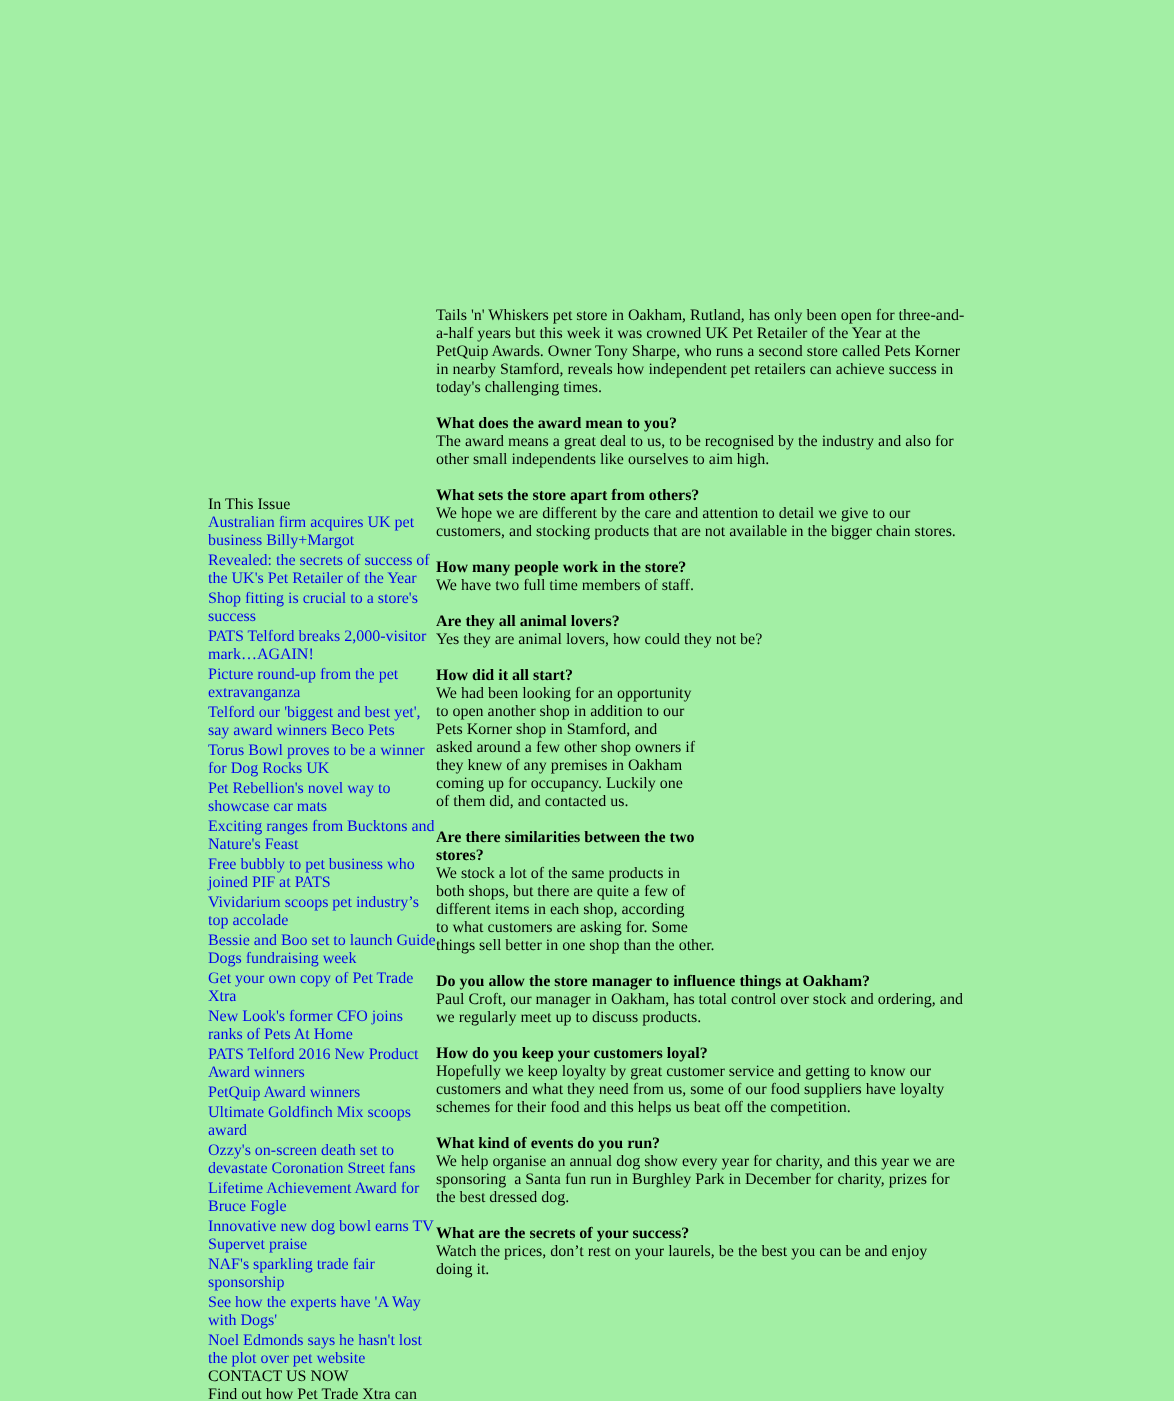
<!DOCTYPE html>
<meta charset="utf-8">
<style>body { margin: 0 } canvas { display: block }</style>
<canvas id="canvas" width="1174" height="1401"></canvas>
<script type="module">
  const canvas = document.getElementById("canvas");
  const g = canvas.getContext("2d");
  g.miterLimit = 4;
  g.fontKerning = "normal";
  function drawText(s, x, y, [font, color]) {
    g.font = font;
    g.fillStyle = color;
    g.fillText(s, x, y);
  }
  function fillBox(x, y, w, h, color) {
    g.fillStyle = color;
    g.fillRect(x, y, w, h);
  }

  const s1 = ["16px Liberation Serif", "#000000"];
  const s2 = ["16px Liberation Serif", "#0000EE"];
  const s3 = ["bold 16px Liberation Serif", "#000000"];

  fillBox(0, 0, 1174, 1401, "#A3EFA5");
  drawText("In This Issue", 208, 509, s1);
  drawText("Australian firm acquires UK pet", 208, 527, s2);
  drawText("business Billy+Margot", 208, 545, s2);
  drawText("Revealed: the secrets of success of", 208, 565, s2);
  drawText("the UK's Pet Retailer of the Year", 208, 583, s2);
  drawText("Shop fitting is crucial to a store's", 208, 603, s2);
  drawText("success", 208, 621, s2);
  drawText("PATS Telford breaks 2,000-visitor", 208, 641, s2);
  drawText("mark…AGAIN!", 208, 659, s2);
  drawText("Picture round-up from the pet", 208, 679, s2);
  drawText("extravanganza", 208, 697, s2);
  drawText("Telford our 'biggest and best yet',", 208, 717, s2);
  drawText("say award winners Beco Pets", 208, 735, s2);
  drawText("Torus Bowl proves to be a winner", 208, 755, s2);
  drawText("for Dog Rocks UK", 208, 773, s2);
  drawText("Pet Rebellion's novel way to", 208, 793, s2);
  drawText("showcase car mats", 208, 811, s2);
  drawText("Exciting ranges from Bucktons and", 208, 831, s2);
  drawText("Nature's Feast", 208, 849, s2);
  drawText("Free bubbly to pet business who", 208, 869, s2);
  drawText("joined PIF at PATS", 208, 887, s2);
  drawText("Vividarium scoops pet industry’s", 208, 907, s2);
  drawText("top accolade", 208, 925, s2);
  drawText("Bessie and Boo set to launch Guide", 208, 945, s2);
  drawText("Dogs fundraising week", 208, 963, s2);
  drawText("Get your own copy of Pet Trade", 208, 983, s2);
  drawText("Xtra", 208, 1001, s2);
  drawText("New Look's former CFO joins", 208, 1021, s2);
  drawText("ranks of Pets At Home", 208, 1039, s2);
  drawText("PATS Telford 2016 New Product", 208, 1059, s2);
  drawText("Award winners", 208, 1077, s2);
  drawText("PetQuip Award winners", 208, 1097, s2);
  drawText("Ultimate Goldfinch Mix scoops", 208, 1117, s2);
  drawText("award", 208, 1135, s2);
  drawText("Ozzy's on-screen death set to", 208, 1155, s2);
  drawText("devastate Coronation Street fans", 208, 1173, s2);
  drawText("Lifetime Achievement Award for", 208, 1193, s2);
  drawText("Bruce Fogle", 208, 1211, s2);
  drawText("Innovative new dog bowl earns TV", 208, 1231, s2);
  drawText("Supervet praise", 208, 1249, s2);
  drawText("NAF's sparkling trade fair", 208, 1269, s2);
  drawText("sponsorship", 208, 1287, s2);
  drawText("See how the experts have 'A Way", 208, 1307, s2);
  drawText("with Dogs'", 208, 1325, s2);
  drawText("Noel Edmonds says he hasn't lost", 208, 1345, s2);
  drawText("the plot over pet website", 208, 1363, s2);
  drawText("CONTACT US NOW", 208, 1381, s1);
  drawText("Find out how Pet Trade Xtra can", 208, 1399, s1);
  drawText("Tails 'n' Whiskers pet store in Oakham, Rutland, has only been open for three-and-", 436, 320, s1);
  drawText("a-half years but this week it was crowned UK Pet Retailer of the Year at the", 436, 338, s1);
  drawText("PetQuip Awards. Owner Tony Sharpe, who runs a second store called Pets Korner", 436, 356, s1);
  drawText("in nearby Stamford, reveals how independent pet retailers can achieve success in", 436, 374, s1);
  drawText("today's challenging times.", 436, 392, s1);
  drawText("What does the award mean to you?", 436, 428, s3);
  drawText("The award means a great deal to us, to be recognised by the industry and also for", 436, 446, s1);
  drawText("other small independents like ourselves to aim high.", 436, 464, s1);
  drawText("What sets the store apart from others?", 436, 500, s3);
  drawText("We hope we are different by the care and attention to detail we give to our", 436, 518, s1);
  drawText("customers, and stocking products that are not available in the bigger chain stores.", 436, 536, s1);
  drawText("How many people work in the store?", 436, 572, s3);
  drawText("We have two full time members of staff.", 436, 590, s1);
  drawText("Are they all animal lovers?", 436, 626, s3);
  drawText("Yes they are animal lovers, how could they not be?", 436, 644, s1);
  drawText("How did it all start?", 436, 680, s3);
  drawText("We had been looking for an opportunity", 436, 698, s1);
  drawText("to open another shop in addition to our", 436, 716, s1);
  drawText("Pets Korner shop in Stamford, and", 436, 734, s1);
  drawText("asked around a few other shop owners if", 436, 752, s1);
  drawText("they knew of any premises in Oakham", 436, 770, s1);
  drawText("coming up for occupancy. Luckily one", 436, 788, s1);
  drawText("of them did, and contacted us.", 436, 806, s1);
  drawText("Are there similarities between the two", 436, 842, s3);
  drawText("stores?", 436, 860, s3);
  drawText("We stock a lot of the same products in", 436, 878, s1);
  drawText("both shops, but there are quite a few of", 436, 896, s1);
  drawText("different items in each shop, according", 436, 914, s1);
  drawText("to what customers are asking for. Some", 436, 932, s1);
  drawText("things sell better in one shop than the other.", 436, 950, s1);
  drawText("Do you allow the store manager to influence things at Oakham?", 436, 986, s3);
  drawText("Paul Croft, our manager in Oakham, has total control over stock and ordering, and", 436, 1004, s1);
  drawText("we regularly meet up to discuss products.", 436, 1022, s1);
  drawText("How do you keep your customers loyal?", 436, 1058, s3);
  drawText("Hopefully we keep loyalty by great customer service and getting to know our", 436, 1076, s1);
  drawText("customers and what they need from us, some of our food suppliers have loyalty", 436, 1094, s1);
  drawText("schemes for their food and this helps us beat off the competition.", 436, 1112, s1);
  drawText("What kind of events do you run?", 436, 1148, s3);
  drawText("We help organise an annual dog show every year for charity, and this year we are", 436, 1166, s1);
  drawText("sponsoring  a Santa fun run in Burghley Park in December for charity, prizes for", 436, 1184, s1);
  drawText("the best dressed dog.", 436, 1202, s1);
  drawText("What are the secrets of your success?", 436, 1238, s3);
  drawText("Watch the prices, don’t rest on your laurels, be the best you can be and enjoy", 436, 1256, s1);
  drawText("doing it.", 436, 1274, s1);
</script>
